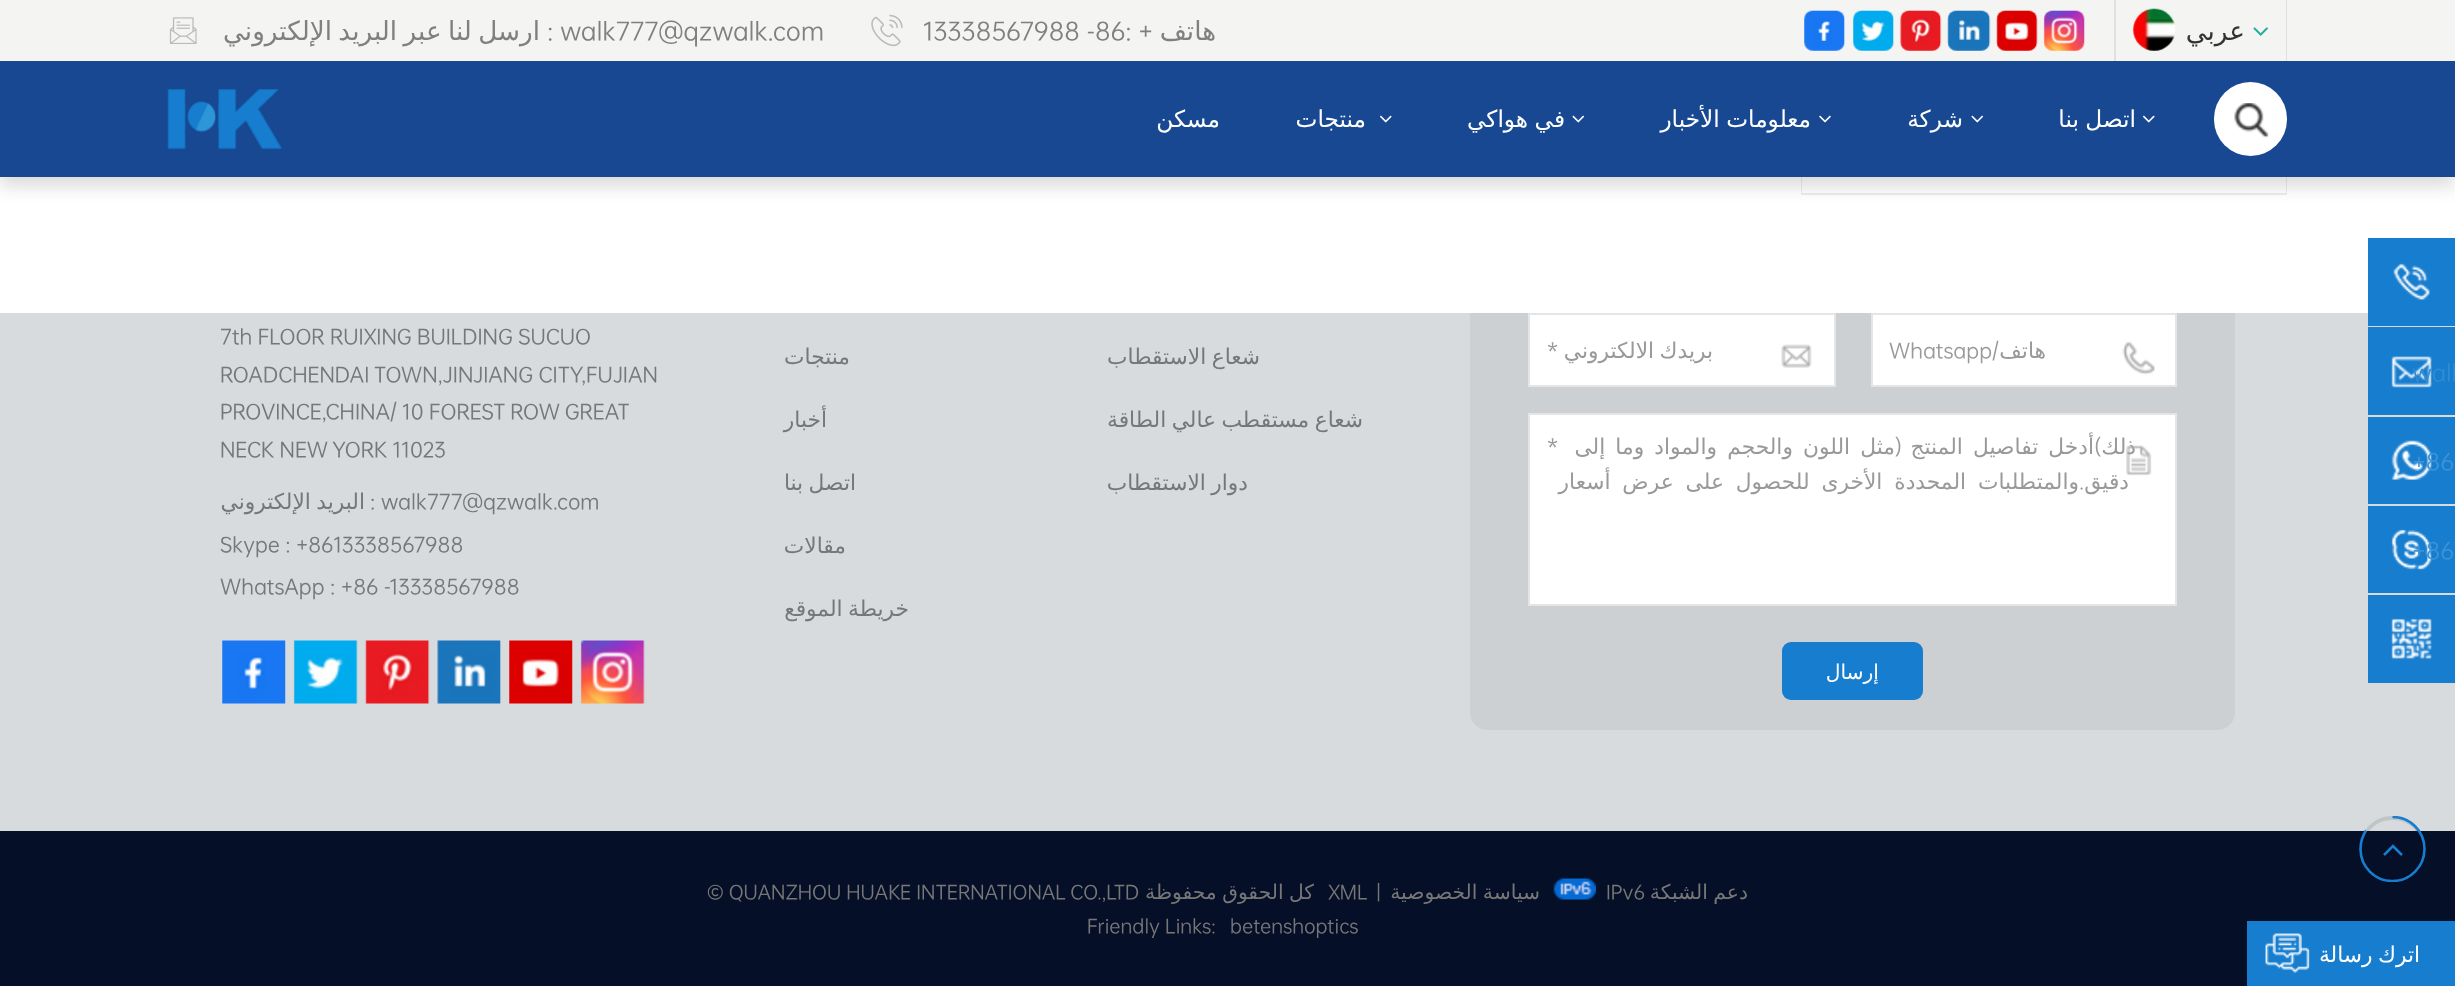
<!DOCTYPE html>
<meta charset="utf-8">
<style>body { margin: 0 } canvas { display: block }</style>
<canvas id="canvas" width="2455" height="986"></canvas>
<script type="module">
  const canvas = document.getElementById("canvas");
  const g = canvas.getContext("2d");
  g.miterLimit = 4;
  g.fontKerning = "normal";
  function drawText(s, x, y, [font, color]) {
    g.font = font;
    g.fillStyle = color;
    g.fillText(s, x, y);
  }
  function fillBox(x, y, w, h, color) {
    g.fillStyle = color;
    g.fillRect(x, y, w, h);
  }
  function fillRounded(x, y, w, h, r, color) {
    g.fillStyle = color;
    g.beginPath();
    g.roundRect(x, y, w, h, r);
    g.fill();
  }
  async function drawPicture(src, x, y, w, h) {
    const img = new Image();
    img.src = src;
    await img.decode();
    g.drawImage(img, x, y, w, h);
  }

  const s1 = ["26.25px DejaVu Sans", "#333333"];
  const s2 = ["26.25px DejaVu Sans", "#808080"];
  const s3 = ["500 26.25px 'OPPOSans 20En'", "#808080"];
  const s4 = ["23.25px DejaVu Sans", "#FFFFFF"];
  const s5 = ["500 24.5px 'OPPOSans 20En'", "#308BD3"];
  const s6 = ["500 24.5px 'OPPOSans 20En'", "#3E93D6"];
  const s7 = ["21.75px DejaVu Sans", "#999999"];
  const s8 = ["500 21.75px 'OPPOSans 20En'", "#999999"];
  const s9 = ["20.3px DejaVu Sans", "#FFFFFF"];
  const s10 = ["21.75px DejaVu Sans", "#777777"];
  const s11 = ["500 21.75px 'OPPOSans 20En'", "#777777"];
  const s12 = ["20.3px DejaVu Sans", "#777777"];
  const s13 = ["500 20.3px 'OPPOSans 20En'", "#777777"];
  const s14 = ["21.75px DejaVu Sans", "#FFFFFF"];

  fillBox(0, 0, 2455, 986, "#D7DBDE");
  fillRounded(1470, 123, 765, 607, 18, "#CCD0D3");
  fillBox(0, 177, 2455, 136, "#FFFFFF");
  g.fillStyle = "#ECECEC";
  g.beginPath();
  g.moveTo(2287, -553);
  g.lineTo(2287, 194);
  g.lineTo(2286, 192);
  g.lineTo(2286, -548);
  g.closePath();
  g.fill();
  fillBox(1801, 193, 486, 2, "#ECECEC");
  g.beginPath();
  g.moveTo(1801, 194);
  g.lineTo(1801, -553);
  g.lineTo(1802, -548);
  g.lineTo(1802, 192);
  g.closePath();
  g.fill();
  g.fillStyle = "rgba(0, 0, 0, 0.15)";
  g.filter = "blur(9px)";
  g.beginPath();
  g.rect(0, 9, 2455, 177);
  g.fill();
  g.filter = "none";
  fillBox(0, 61, 2455, 116, "#174891");
  fillBox(0, 0, 2455, 61, "#F4F4F2");
  fillBox(2286, 0, 1, 61, "#E0E0DF");
  fillBox(2114, 0, 2, 61, "#E0E0DF");
  await drawPicture("pic1.png", 2253, 27, 15, 9);
  g.direction = "rtl";
  drawText("عربي", 2245, 40, s1);
  await drawPicture("pic2.png", 2133, 8, 42, 43);
  await drawPicture("pic3.png", 2043, 10, 42, 41);
  await drawPicture("pic4.png", 1996, 10, 42, 41);
  await drawPicture("pic5.png", 1947, 10, 44, 41);
  await drawPicture("pic6.png", 1900, 10, 42, 41);
  await drawPicture("pic7.png", 1853, 10, 41, 41);
  await drawPicture("pic8.png", 1804, 10, 41, 41);
  drawText("هاتف", 1216, 40, s2);
  g.direction = "ltr";
  drawText("13338567988 -86: +", 923, 40, s3);
  await drawPicture("pic9.png", 871, 14, 32, 33);
  drawText(": walk777@qzwalk.com", 547, 40, s3);
  g.wordSpacing = "-2px";
  g.direction = "rtl";
  drawText("ارسل لنا عبر البريد الإلكتروني", 540, 40, s2);
  await drawPicture("pic10.png", 169, 17, 28, 27);
  fillRounded(2214, 82, 73, 74, 36.5, "#FFFFFF");
  await drawPicture("pic11.png", 2234, 103, 35, 35);
  await drawPicture("pic12.png", 2142, 115, 13, 8);
  g.wordSpacing = "-1px";
  drawText("اتصل بنا", 2136, 127, s4);
  await drawPicture("pic13.png", 1971, 115, 13, 8);
  g.wordSpacing = "0px";
  drawText("شركة", 1963, 127, s4);
  await drawPicture("pic14.png", 1819, 115, 12, 8);
  g.wordSpacing = "-1px";
  drawText("معلومات الأخبار", 1811, 127, s4);
  await drawPicture("pic13.png", 1572, 115, 13, 8);
  drawText("في هواكي", 1565, 127, s4);
  await drawPicture("pic12.png", 1379, 115, 13, 8);
  g.wordSpacing = "0px";
  drawText("منتجات", 1366, 127, s4);
  drawText("مسكن", 1220, 127, s4);
  await drawPicture("pic15.png", 167, 89, 115, 61);
  fillBox(2368, 238, 87, 88, "#177DCE");
  await drawPicture("pic16.png", 2393, 263, 37, 37);
  fillBox(2368, 327, 87, 88, "#177DCE");
  await drawPicture("pic17.png", 2391, 356, 41, 32);
  g.direction = "ltr";
  drawText("walk", 2412, 381, s5);
  fillBox(2368, 417, 87, 87, "#177DCE");
  await drawPicture("pic18.png", 2391, 440, 41, 40);
  drawText("+86", 2412, 470, s6);
  fillBox(2368, 506, 87, 87, "#177DCE");
  await drawPicture("pic19.png", 2391, 529, 41, 41);
  drawText("+86", 2412, 559, s6);
  fillBox(2368, 595, 87, 88, "#177DCE");
  await drawPicture("pic20.png", 2391, 618, 41, 42);
  g.fillStyle = "#FFFFFF";
  g.beginPath();
  g.rect(1872, 314, 304, 72);
  g.fill();
  g.strokeStyle = "#E5E5E5";
  g.lineWidth = 2;
  g.stroke();
  await drawPicture("pic21.png", 2122, 341, 33, 34);
  g.direction = "rtl";
  drawText("هاتف", 2046, 358, s7);
  drawText("/Whatsapp", 1999, 358, s8);
  g.fillStyle = "#FFFFFF";
  g.beginPath();
  g.rect(1529, 314, 306, 72);
  g.fill();
  g.stroke();
  await drawPicture("pic22.png", 1781, 344, 31, 24);
  g.wordSpacing = "-1.5px";
  drawText("بريدك الالكتروني", 1713, 358, s7);
  g.wordSpacing = "0px";
  g.direction = "ltr";
  drawText("*", 1547, 358, s8);
  g.fillStyle = "#FFFFFF";
  g.beginPath();
  g.rect(1529, 414, 647, 191);
  g.fill();
  g.stroke();
  g.direction = "rtl";
  drawText("ذلك", 2136, 454, s7);
  drawText("دقيق", 2129, 489, s7);
  await drawPicture("pic23.png", 2126, 445, 26, 31);
  drawText(")", 2101, 454, s8);
  g.wordSpacing = "3.25px";
  drawText("أدخل تفاصيل المنتج", 2094, 454, s7);
  g.wordSpacing = "0px";
  drawText("(", 1902, 454, s8);
  g.wordSpacing = "3.25px";
  drawText("مثل اللون والحجم والمواد وما إلى", 1895, 454, s7);
  g.wordSpacing = "0px";
  g.direction = "ltr";
  drawText("*", 1547, 454, s8);
  g.direction = "rtl";
  drawText(".", 2084, 489, s8);
  g.wordSpacing = "5px";
  drawText("والمتطلبات المحددة الأخرى للحصول على عرض أسعار", 2079, 489, s7);
  fillRounded(1782, 642, 141, 58, 9, "#177DCE");
  g.wordSpacing = "0px";
  drawText("إرسال", 1879, 679, s9);
  g.wordSpacing = "-1.5px";
  drawText("شعاع الاستقطاب", 1260, 364, s10);
  drawText("شعاع مستقطب عالي الطاقة", 1363, 427, s10);
  drawText("دوار الاستقطاب", 1248, 490, s10);
  g.wordSpacing = "0px";
  drawText("منتجات", 850, 364, s10);
  drawText("أخبار", 827, 427, s10);
  g.wordSpacing = "-1.5px";
  drawText("اتصل بنا", 856, 490, s10);
  g.wordSpacing = "0px";
  drawText("مقالات", 846, 553, s10);
  g.wordSpacing = "-1.5px";
  drawText("خريطة الموقع", 909, 616, s10);
  g.wordSpacing = "0px";
  g.direction = "ltr";
  drawText("7th FLOOR RUIXING BUILDING SUCUO", 220, 344, s11);
  drawText("ROADCHENDAI TOWN,JINJIANG CITY,FUJIAN", 220, 382, s11);
  drawText("10 FOREST ROW GREAT", 402, 419, s11);
  drawText("PROVINCE,CHINA/", 220, 419, s11);
  drawText("NECK NEW YORK 11023", 220, 457, s11);
  drawText(": walk777@qzwalk.com", 370, 509, s11);
  g.wordSpacing = "-1.5px";
  g.direction = "rtl";
  drawText("البريد الإلكتروني", 365, 509, s10);
  g.wordSpacing = "0px";
  g.direction = "ltr";
  drawText("Skype : +8613338567988", 220, 552, s11);
  drawText("WhatsApp : +86 -13338567988", 220, 594, s11);
  await drawPicture("pic24.png", 580, 640, 65, 64);
  await drawPicture("pic25.png", 509, 640, 64, 64);
  await drawPicture("pic26.png", 437, 640, 64, 64);
  await drawPicture("pic27.png", 365, 640, 65, 64);
  await drawPicture("pic28.png", 293, 640, 65, 64);
  await drawPicture("pic29.png", 222, 640, 64, 64);
  fillBox(0, 831, 2455, 155, "#050F27");
  g.wordSpacing = "-1px";
  g.direction = "rtl";
  drawText("دعم الشبكة", 1748, 899, s12);
  g.wordSpacing = "0px";
  g.direction = "ltr";
  drawText("IPv6", 1606, 899, s13);
  await drawPicture("pic30.png", 1553, 878, 43, 22);
  g.wordSpacing = "-1px";
  g.direction = "rtl";
  drawText("سياسة الخصوصية", 1540, 899, s12);
  g.wordSpacing = "0px";
  g.direction = "ltr";
  drawText("|", 1376, 899, s13);
  drawText("XML", 1328, 899, s13);
  g.wordSpacing = "-1px";
  g.direction = "rtl";
  drawText("كل الحقوق محفوظة", 1314, 899, s12);
  g.wordSpacing = "0px";
  g.direction = "ltr";
  drawText("© QUANZHOU HUAKE INTERNATIONAL CO.,LTD", 707, 899, s13);
  drawText("betenshoptics", 1230, 933, s13);
  drawText("Friendly Links:", 1087, 933, s13);
  g.beginPath();
  g.roundRect(2361, 818, 63, 62, 31);
  g.strokeStyle = "rgba(0, 0, 0, 0.1)";
  g.lineWidth = 4;
  g.stroke();
  g.save();
  g.beginPath();
  g.rect(2359, 816, 67, 66);
  g.clip();
  g.beginPath();
  g.moveTo(2392.5, 817);
  g.bezierCurveTo(2410, 817, 2424.5, 831, 2424.5, 849);
  g.bezierCurveTo(2424.5, 866.5, 2410, 881, 2392.5, 881);
  g.bezierCurveTo(2374.5, 881, 2360.5, 866.5, 2360.5, 849);
  g.bezierCurveTo(2360.5, 842, 2362.5, 836, 2366, 830.5);
  g.strokeStyle = "#177DCE";
  g.lineWidth = 2.6;
  g.stroke();
  g.restore();
  await drawPicture("pic31.png", 2383, 844, 20, 12);
  fillBox(2247, 921, 208, 65, "#177DCE");
  await drawPicture("pic32.png", 2265, 933, 45, 40);
  g.wordSpacing = "-1.5px";
  g.direction = "rtl";
  drawText("اترك رسالة", 2420, 962, s14);
</script>
